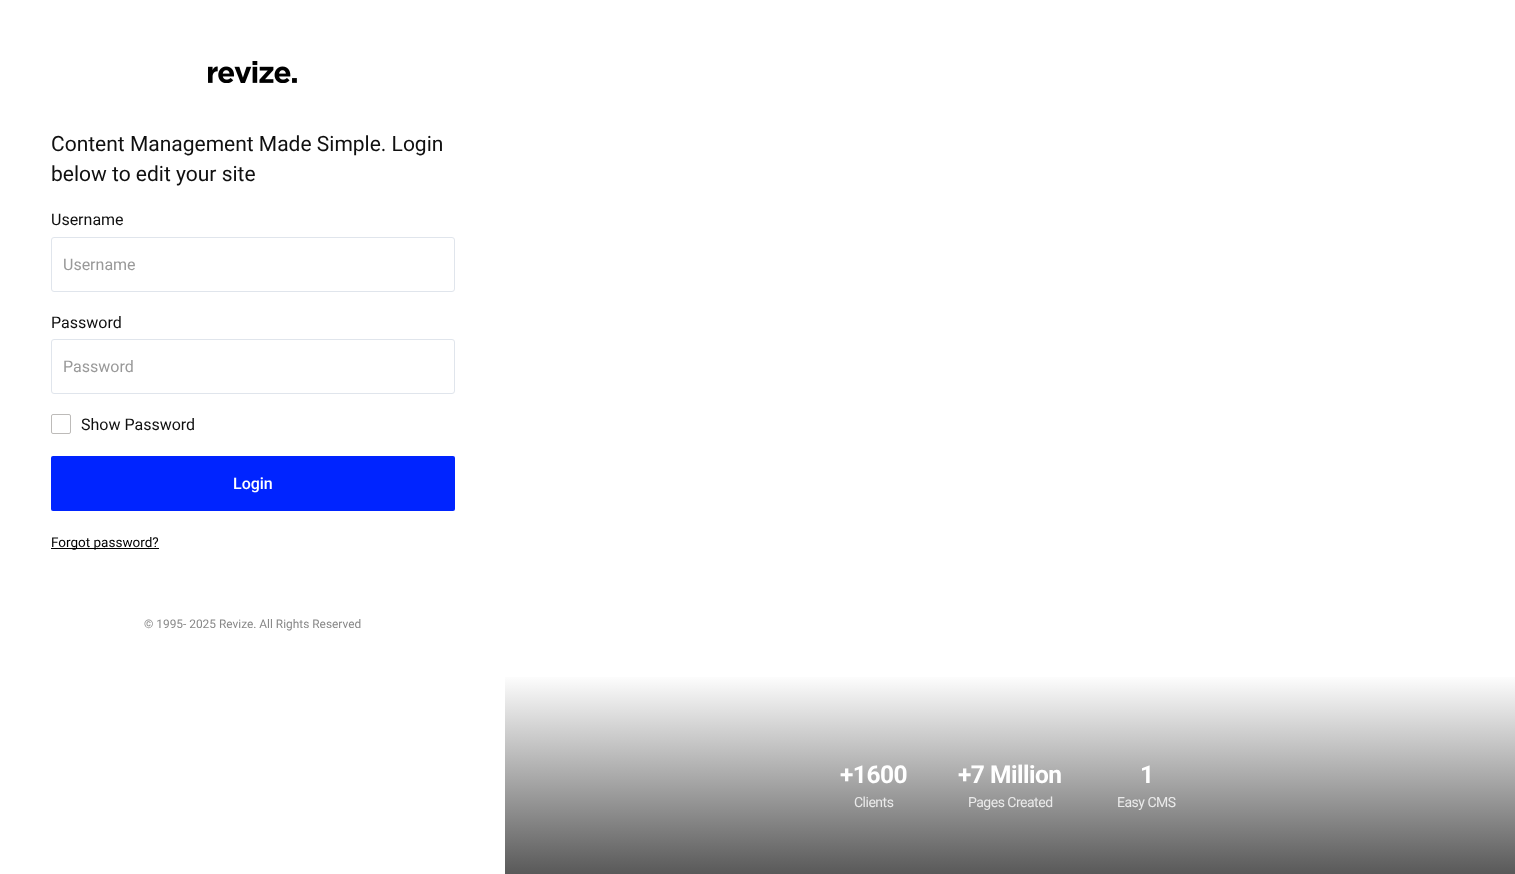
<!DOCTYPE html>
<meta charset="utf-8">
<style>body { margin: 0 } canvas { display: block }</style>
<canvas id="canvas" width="1515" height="874"></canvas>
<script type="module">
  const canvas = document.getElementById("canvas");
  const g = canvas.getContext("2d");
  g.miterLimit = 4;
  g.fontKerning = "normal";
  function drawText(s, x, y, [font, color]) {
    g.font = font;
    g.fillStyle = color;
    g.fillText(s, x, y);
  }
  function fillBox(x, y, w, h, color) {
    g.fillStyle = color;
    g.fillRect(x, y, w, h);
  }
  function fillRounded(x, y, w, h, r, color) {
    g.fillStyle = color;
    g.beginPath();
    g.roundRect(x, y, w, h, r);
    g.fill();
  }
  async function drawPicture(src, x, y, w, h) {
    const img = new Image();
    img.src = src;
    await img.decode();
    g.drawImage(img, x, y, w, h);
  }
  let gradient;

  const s1 = ["21px Roboto", "#101010"];
  const s2 = ["16px Roboto", "#101010"];
  const s3 = ["16px Roboto", "#999999"];
  const s4 = ["500 16px Roboto", "#FFFFFF"];
  const s5 = ["13.5px Roboto", "#000000"];
  const s6 = ["11.9px Roboto", "#888888"];
  const s7 = ["bold 24.5px Roboto", "#FFFFFF"];
  const s8 = ["14px Roboto", "#EAEAEA"];

  fillBox(0, 0, 1515, 874, "#FFFFFF");
  await drawPicture("pic1.png", 208, 61, 89, 22);
  drawText("Content Management Made Simple. Login", 51, 151, s1);
  drawText("below to edit your site", 51, 181, s1);
  drawText("Username", 51, 225, s2);
  g.beginPath();
  g.roundRect(51.5, 237.5, 403, 54, 2.5);
  g.strokeStyle = "#E0E5EC";
  g.stroke();
  drawText("Username", 63, 270, s3);
  drawText("Password", 51, 328, s2);
  g.beginPath();
  g.roundRect(51.5, 339.5, 403, 54, 2.5);
  g.stroke();
  drawText("Password", 63, 372, s3);
  g.beginPath();
  g.roundRect(51.5, 414.5, 19, 19, 1.5);
  g.strokeStyle = "#BDBBB9";
  g.stroke();
  drawText("Show Password", 81, 430, s2);
  fillRounded(51, 456, 404, 55, 2, "#0024FF");
  drawText("Login", 233, 489, s4);
  fillBox(51, 548, 108, 1, "#000000");
  drawText("Forgot password?", 51, 547, s5);
  drawText("© 1995- 2025 Revize. All Rights Reserved", 144, 628, s6);
  gradient = g.createLinearGradient(1010, 674, 1010, 874);
  gradient.addColorStop(0, "#FFFFFF");
  gradient.addColorStop(1, "#595959");
  g.fillStyle = gradient;
  g.fillRect(505, 677, 1010, 197);
  g.letterSpacing = "-0.5px";
  drawText("+1600", 840, 783, s7);
  drawText("Clients", 854, 807, s8);
  drawText("+7 Million", 958, 783, s7);
  drawText("Pages Created", 968, 807, s8);
  drawText("1", 1140, 783, s7);
  drawText("Easy CMS", 1117, 807, s8);
</script>
